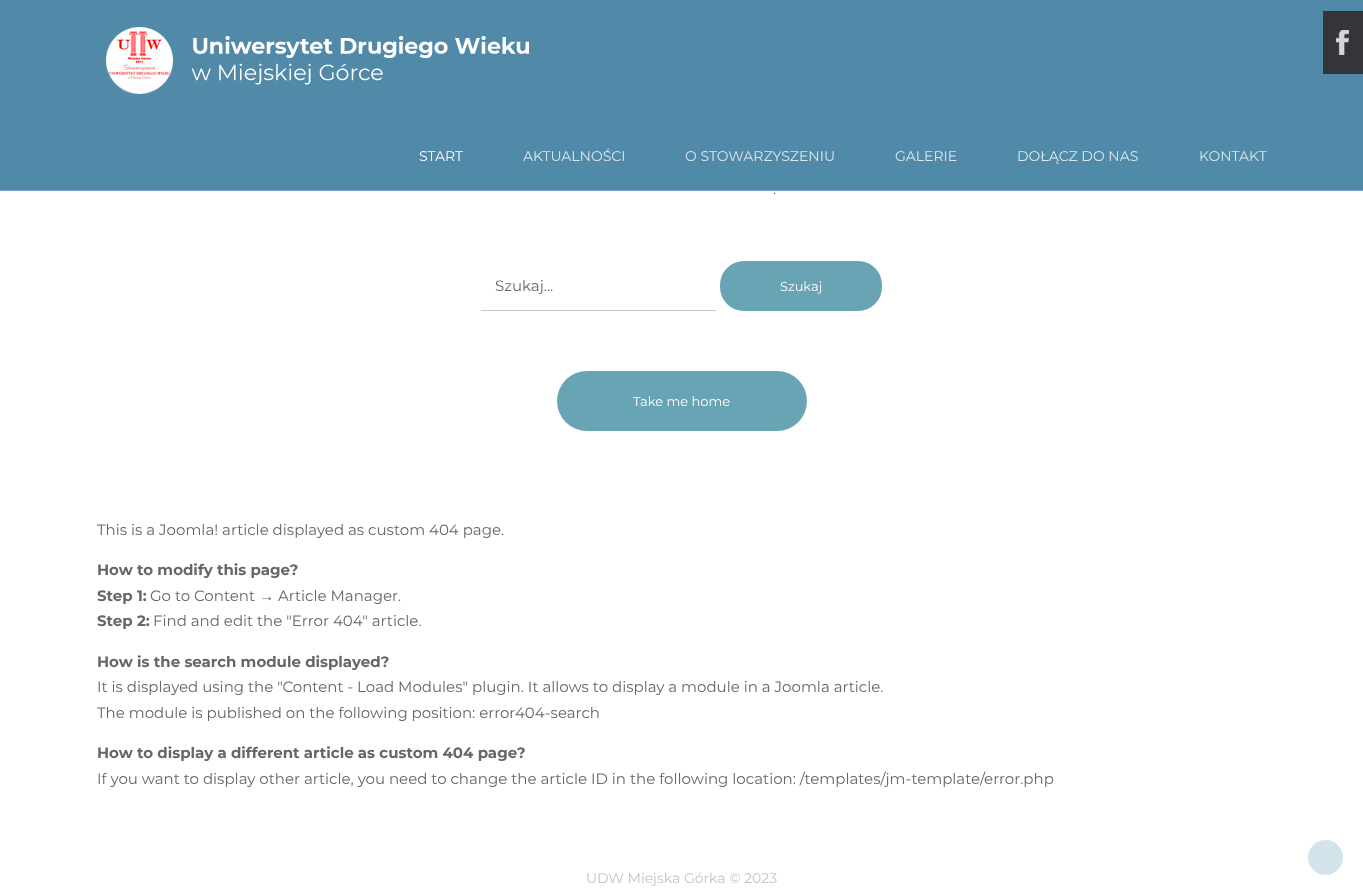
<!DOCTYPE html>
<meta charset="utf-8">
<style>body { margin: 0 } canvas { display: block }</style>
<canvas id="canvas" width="1363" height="895"></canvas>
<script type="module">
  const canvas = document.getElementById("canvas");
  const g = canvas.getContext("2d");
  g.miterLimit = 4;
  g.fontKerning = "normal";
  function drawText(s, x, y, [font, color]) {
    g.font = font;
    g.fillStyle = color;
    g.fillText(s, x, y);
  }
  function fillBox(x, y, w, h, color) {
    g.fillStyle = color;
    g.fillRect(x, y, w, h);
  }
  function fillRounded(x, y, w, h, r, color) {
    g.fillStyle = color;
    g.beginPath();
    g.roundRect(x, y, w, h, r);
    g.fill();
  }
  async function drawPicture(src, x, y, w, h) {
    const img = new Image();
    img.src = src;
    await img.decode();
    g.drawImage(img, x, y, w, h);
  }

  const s1 = ["14px Montserrat", "#FFFFFF"];
  const s2 = ["14px Montserrat", "#DCE7EE"];
  const s3 = ["15px Montserrat", "#666666"];
  const s4 = ["13px Montserrat", "#FFFFFF"];
  const s5 = ["bold 15px Montserrat", "#666666"];
  const s6 = ["15px Liberation Sans", "#666666"];
  const s7 = ["14px Montserrat", "#C2C2C2"];

  fillBox(0, 0, 1363, 895, "#FFFFFF");
  fillBox(0, 0, 1363, 191, "rgba(38, 108, 148, 0.8)");
  fillBox(1323, 11, 40, 63, "#33353B");
  await drawPicture("pic1.png", 1336, 30, 13, 25);
  fillBox(0, 190, 1363, 1, "rgba(255, 255, 255, 0.25)");
  await drawPicture("pic2.png", 106, 27, 423, 67);
  drawText("START", 419, 161, s1);
  drawText("AKTUALNOŚCI", 523, 161, s2);
  drawText("O STOWARZYSZENIU", 685, 161, s2);
  drawText("GALERIE", 895, 161, s2);
  drawText("DOŁĄCZ DO NAS", 1017, 161, s2);
  drawText("KONTAKT", 1199, 161, s2);
  drawText(".", 773, 194, s3);
  fillBox(481, 310, 235, 1, "#C7C7C7");
  drawText("Szukaj...", 495, 291, s3);
  fillRounded(720, 261, 162, 50, 24, "#69A4B5");
  drawText("Szukaj", 780, 291, s4);
  fillRounded(557, 371, 250, 60, 30, "#69A4B5");
  drawText("Take me home", 633, 406, s4);
  drawText("This is a Joomla! article displayed as custom 404 page.", 97, 535, s3);
  drawText("How to modify this page?", 97, 575, s5);
  drawText("Step 1:", 97, 601, s5);
  drawText("Go to Content", 150, 601, s3);
  drawText("→", 259, 601, s6);
  drawText("Article Manager.", 278, 601, s3);
  drawText("Step 2:", 97, 626, s5);
  drawText("Find and edit the \"Error 404\" article.", 153, 626, s3);
  drawText("How is the search module displayed?", 97, 667, s5);
  drawText("It is displayed using the \"Content - Load Modules\" plugin. It allows to display a module in a Joomla article.", 97, 692, s3);
  drawText("The module is published on the following position: error404-search", 97, 718, s3);
  drawText("How to display a different article as custom 404 page?", 97, 758, s5);
  drawText("If you want to display other article, you need to change the article ID in the following location: /templates/jm-template/error.php", 97, 784, s3);
  g.fillStyle = "#D2E4E9";
  g.beginPath();
  g.arc(1325.5, 857.5, 17.5, 0, Math.PI * 2);
  g.fill();
  drawText("UDW Miejska Górka © 2023", 586, 883, s7);
</script>
